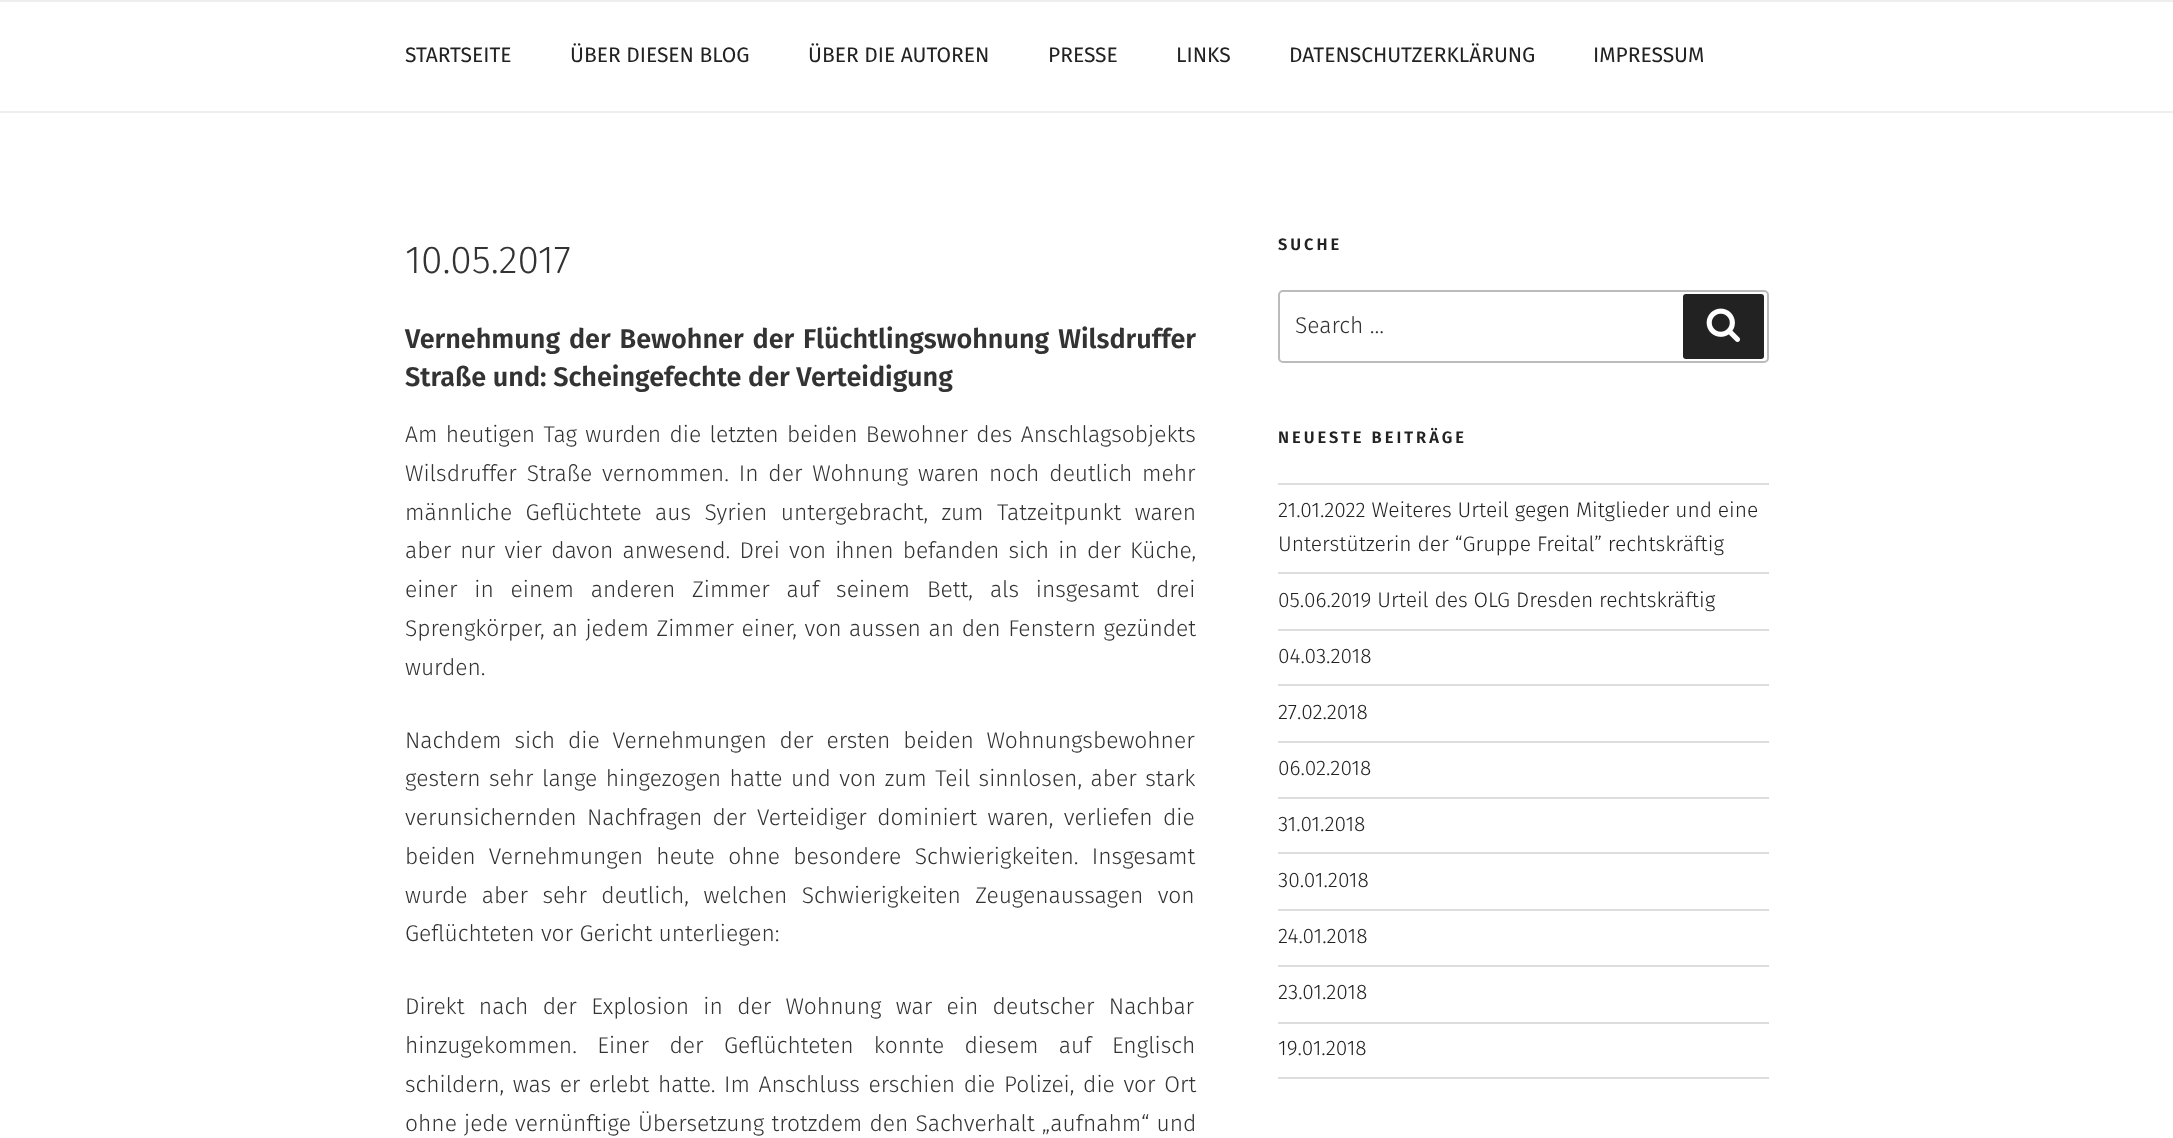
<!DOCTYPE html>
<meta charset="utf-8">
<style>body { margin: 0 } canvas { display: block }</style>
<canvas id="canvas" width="2173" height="1138"></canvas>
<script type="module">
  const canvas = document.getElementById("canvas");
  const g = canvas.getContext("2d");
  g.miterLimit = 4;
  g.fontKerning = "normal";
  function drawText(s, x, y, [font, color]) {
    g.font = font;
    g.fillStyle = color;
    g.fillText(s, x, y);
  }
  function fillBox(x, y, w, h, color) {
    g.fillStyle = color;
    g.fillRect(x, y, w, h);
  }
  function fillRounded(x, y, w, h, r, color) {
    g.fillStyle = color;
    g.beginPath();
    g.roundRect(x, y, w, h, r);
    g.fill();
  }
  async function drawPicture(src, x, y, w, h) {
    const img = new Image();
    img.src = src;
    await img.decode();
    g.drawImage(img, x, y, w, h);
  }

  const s1 = ["21px Fira Sans", "#222222"];
  const s2 = ["300 39px Fira Sans", "#333333"];
  const s3 = ["600 27px Fira Sans", "#333333"];
  const s4 = ["300 22.8px Fira Sans", "#333333"];
  const s5 = ["600 16.5px Fira Sans", "#222222"];
  const s6 = ["300 21px Fira Sans", "#222222"];

  fillBox(0, 0, 2173, 1138, "#FFFFFF");
  fillBox(0, 0, 2173, 2, "#EEEEEE");
  fillBox(0, 111, 2173, 2, "#EEEEEE");
  drawText("STARTSEITE", 405, 62, s1);
  drawText("ÜBER DIESEN BLOG", 570, 62, s1);
  drawText("ÜBER DIE AUTOREN", 808, 62, s1);
  drawText("PRESSE", 1048, 62, s1);
  drawText("LINKS", 1176, 62, s1);
  drawText("DATENSCHUTZERKLÄRUNG", 1289, 62, s1);
  drawText("IMPRESSUM", 1593, 62, s1);
  drawText("10.05.2017", 405, 273, s2);
  g.wordSpacing = "2.25px";
  drawText("Vernehmung der Bewohner der Flüchtlingswohnung Wilsdruffer", 405, 348, s3);
  g.wordSpacing = "0px";
  drawText("Straße und: Scheingefechte der Verteidigung", 405, 386, s3);
  g.wordSpacing = "2px";
  drawText("Am heutigen Tag wurden die letzten beiden Bewohner des Anschlagsobjekts", 405, 442, s4);
  g.wordSpacing = "3.5px";
  drawText("Wilsdruffer Straße vernommen. In der Wohnung waren noch deutlich mehr", 405, 481, s4);
  g.wordSpacing = "7px";
  drawText("männliche Geflüchtete aus Syrien untergebracht, zum Tatzeitpunkt waren", 405, 520, s4);
  g.wordSpacing = "2.75px";
  drawText("aber nur vier davon anwesend. Drei von ihnen befanden sich in der Küche,", 405, 558, s4);
  g.wordSpacing = "10.5px";
  drawText("einer in einem anderen Zimmer auf seinem Bett, als insgesamt drei", 405, 597, s4);
  g.wordSpacing = "1.25px";
  drawText("Sprengkörper, an jedem Zimmer einer, von aussen an den Fenstern gezündet", 405, 636, s4);
  g.wordSpacing = "0px";
  drawText("wurden.", 405, 675, s4);
  g.wordSpacing = "6.5px";
  drawText("Nachdem sich die Vernehmungen der ersten beiden Wohnungsbewohner", 405, 748, s4);
  g.wordSpacing = "2.1px";
  drawText("gestern sehr lange hingezogen hatte und von zum Teil sinnlosen, aber stark", 405, 786, s4);
  g.wordSpacing = "4px";
  drawText("verunsichernden Nachfragen der Verteidiger dominiert waren, verliefen die", 405, 825, s4);
  g.wordSpacing = "7px";
  drawText("beiden Vernehmungen heute ohne besondere Schwierigkeiten. Insgesamt", 405, 864, s4);
  g.wordSpacing = "8px";
  drawText("wurde aber sehr deutlich, welchen Schwierigkeiten Zeugenaussagen von", 405, 903, s4);
  g.wordSpacing = "0px";
  drawText("Geflüchteten vor Gericht unterliegen:", 405, 941, s4);
  g.wordSpacing = "8px";
  drawText("Direkt nach der Explosion in der Wohnung war ein deutscher Nachbar", 405, 1014, s4);
  g.wordSpacing = "14px";
  drawText("hinzugekommen. Einer der Geflüchteten konnte diesem auf Englisch", 405, 1053, s4);
  g.wordSpacing = "2.25px";
  drawText("schildern, was er erlebt hatte. Im Anschluss erschien die Polizei, die vor Ort", 405, 1092, s4);
  g.wordSpacing = "0.75px";
  drawText("ohne jede vernünftige Übersetzung trotzdem den Sachverhalt „aufnahm“ und", 405, 1131, s4);
  g.letterSpacing = "3px";
  g.wordSpacing = "0px";
  drawText("SUCHE", 1278, 250, s5);
  g.beginPath();
  g.roundRect(1279, 291, 489, 71, 4);
  g.strokeStyle = "#BBBBBB";
  g.lineWidth = 2;
  g.stroke();
  g.letterSpacing = "0px";
  drawText("Search …", 1295, 333, s4);
  fillRounded(1683, 294, 81, 65, 3, "#222222");
  await drawPicture("pic1.png", 1706, 308, 34, 34);
  g.letterSpacing = "3px";
  drawText("NEUESTE BEITRÄGE", 1278, 443, s5);
  fillBox(1278, 483, 491, 2, "#DDDDDD");
  fillBox(1278, 572, 491, 2, "#DDDDDD");
  g.letterSpacing = "0px";
  drawText("21.01.2022 Weiteres Urteil gegen Mitglieder und eine", 1278, 517, s6);
  drawText("Unterstützerin der “Gruppe Freital” rechtskräftig", 1278, 551, s6);
  fillBox(1278, 629, 491, 2, "#DDDDDD");
  drawText("05.06.2019 Urteil des OLG Dresden rechtskräftig", 1278, 607, s6);
  fillBox(1278, 684, 491, 2, "#DDDDDD");
  drawText("04.03.2018", 1278, 663, s6);
  fillBox(1278, 741, 491, 2, "#DDDDDD");
  drawText("27.02.2018", 1278, 719, s6);
  fillBox(1278, 797, 491, 2, "#DDDDDD");
  drawText("06.02.2018", 1278, 775, s6);
  fillBox(1278, 852, 491, 2, "#DDDDDD");
  drawText("31.01.2018", 1278, 831, s6);
  fillBox(1278, 909, 491, 2, "#DDDDDD");
  drawText("30.01.2018", 1278, 887, s6);
  fillBox(1278, 965, 491, 2, "#DDDDDD");
  drawText("24.01.2018", 1278, 943, s6);
  fillBox(1278, 1022, 491, 2, "#DDDDDD");
  drawText("23.01.2018", 1278, 999, s6);
  fillBox(1278, 1077, 491, 2, "#DDDDDD");
  drawText("19.01.2018", 1278, 1055, s6);
</script>
